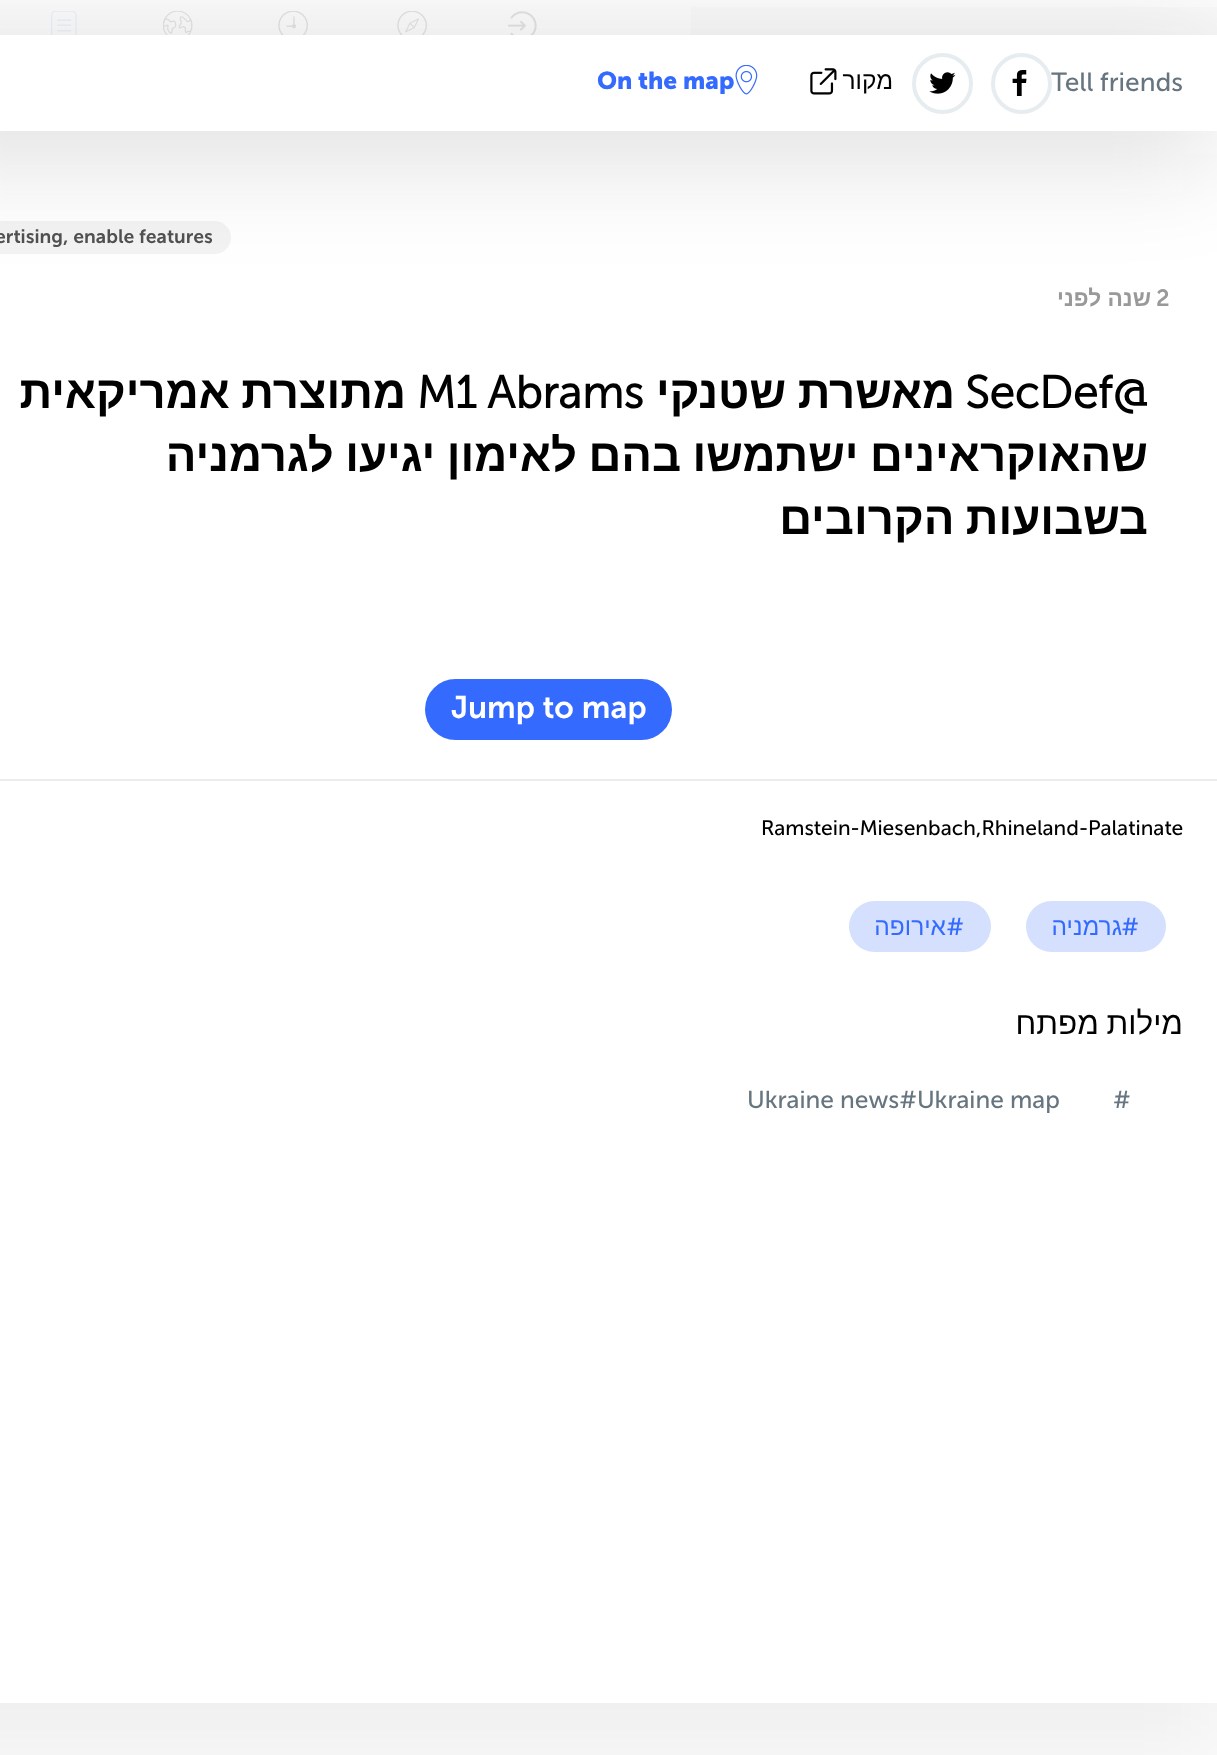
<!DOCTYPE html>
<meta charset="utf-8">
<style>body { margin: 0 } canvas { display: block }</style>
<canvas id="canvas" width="1217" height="1755"></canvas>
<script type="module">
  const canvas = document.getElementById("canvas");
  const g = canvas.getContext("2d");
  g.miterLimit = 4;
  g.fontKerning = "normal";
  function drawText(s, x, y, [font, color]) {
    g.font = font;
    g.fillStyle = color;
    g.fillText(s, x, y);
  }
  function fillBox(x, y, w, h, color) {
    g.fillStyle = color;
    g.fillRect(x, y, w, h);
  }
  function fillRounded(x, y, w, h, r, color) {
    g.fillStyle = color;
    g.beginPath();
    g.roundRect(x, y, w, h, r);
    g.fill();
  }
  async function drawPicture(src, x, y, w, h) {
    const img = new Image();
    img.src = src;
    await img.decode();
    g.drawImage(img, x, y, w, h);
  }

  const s1 = ["bold 24.5px 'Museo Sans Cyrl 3'", "#346AFE"];
  const s2 = ["24.5px Liberation Sans", "#000000"];
  const s3 = ["26.25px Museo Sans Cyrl", "#66757F"];
  const s4 = ["600 19.25px Museo Sans Cyrl", "#505050"];
  const s5 = ["bold 22.75px Liberation Sans", "#999999"];
  const s6 = ["bold 22.75px 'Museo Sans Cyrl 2'", "#999999"];
  const s7 = ["bold 45.5px Liberation Sans", "#000000"];
  const s8 = ["bold 45.5px Museo Sans Cyrl", "#000000"];
  const s9 = ["600 31.5px Museo Sans Cyrl", "#FFFFFF"];
  const s10 = ["21px Museo Sans Cyrl", "#000000"];
  const s11 = ["24.5px Liberation Sans", "#346AFE"];
  const s12 = ["24.5px Museo Sans Cyrl", "#346AFE"];
  const s13 = ["31.5px Liberation Sans", "#000000"];
  const s14 = ["24.5px Museo Sans Cyrl", "#66757F"];

  fillBox(0, 0, 1217, 1755, "#FBFBFB");
  await drawPicture("pic1.png", 51, 11, 26, 24);
  await drawPicture("pic2.png", 163, 11, 30, 24);
  await drawPicture("pic3.png", 278, 11, 30, 24);
  await drawPicture("pic4.png", 397, 11, 30, 24);
  await drawPicture("pic5.png", 508, 11, 29, 24);
  fillBox(691, 7, 526, 28, "#F8F8F8");
  g.fillStyle = "rgba(0, 0, 0, 0.05)";
  g.filter = "blur(44px)";
  g.beginPath();
  g.rect(-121, 79, 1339, 1668);
  g.fill();
  g.filter = "none";
  fillBox(0, 131, 1217, 1572, "#FFFFFF");
  g.fillStyle = "#F3F3F3";
  g.beginPath();
  g.moveTo(-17, 221);
  g.lineTo(214.5, 221);
  g.bezierCurveTo(223.5, 221, 231, 228.5, 231, 237.5);
  g.bezierCurveTo(231, 246.5, 223.5, 254, 214.5, 254);
  g.lineTo(-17, 254);
  g.closePath();
  g.fill();
  g.fillStyle = "rgba(16, 15, 15, 0.14)";
  g.filter = "blur(52.5px)";
  g.beginPath();
  g.rect(-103, 61, 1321, 97);
  g.fill();
  g.filter = "none";
  fillBox(0, 35, 1217, 96, "#FFFFFF");
  drawText("On the map", 597, 89, s1);
  await drawPicture("pic6.png", 735, 65, 23, 30);
  await drawPicture("pic7.png", 810, 68, 27, 27);
  g.direction = "rtl";
  drawText("מקור", 893, 89, s2);
  await drawPicture("pic8.png", 929, 72, 27, 22);
  g.beginPath();
  g.arc(942.5, 83.5, 28.5, 0, Math.PI * 2);
  g.strokeStyle = "#E6ECEF";
  g.lineWidth = 4;
  g.stroke();
  await drawPicture("pic9.png", 1012, 70, 15, 26);
  g.direction = "ltr";
  drawText("Tell friends", 1051, 91, s3);
  g.beginPath();
  g.arc(1021.5, 83.5, 28.5, 0, Math.PI * 2);
  g.stroke();
  drawText("ertising, enable features", -5, 243, s4);
  g.direction = "rtl";
  drawText("שנה לפני", 1151, 306, s5);
  g.direction = "ltr";
  drawText("2", 1156, 306, s6);
  g.wordSpacing = "-1px";
  g.direction = "rtl";
  drawText("מתוצרת אמריקאית", 406, 408, s7);
  g.wordSpacing = "0px";
  g.direction = "ltr";
  drawText("M1 Abrams", 417, 408, s8);
  g.wordSpacing = "-1px";
  g.direction = "rtl";
  drawText("מאשרת שטנקי", 955, 408, s7);
  g.wordSpacing = "0px";
  g.direction = "ltr";
  drawText("SecDef@", 965, 408, s8);
  g.wordSpacing = "-1.25px";
  g.direction = "rtl";
  drawText("שהאוקראינים ישתמשו בהם לאימון יגיעו לגרמניה", 1148, 471, s7);
  drawText("בשבועות הקרובים", 1148, 534, s7);
  fillBox(0, 779, 1217, 2, "#ECECEC");
  fillRounded(425, 679, 247, 61, 30.5, "#346AFE");
  g.wordSpacing = "0px";
  g.direction = "ltr";
  drawText("Jump to map", 451, 718, s9);
  drawText("Ramstein-Miesenbach,Rhineland-Palatinate", 761, 835, s10);
  fillRounded(849, 901, 142, 51, 25.5, "#D5E0FF");
  g.direction = "rtl";
  drawText("אירופה", 946, 935, s11);
  drawText("#", 964, 935, s12);
  fillRounded(1026, 901, 140, 51, 25.5, "#D5E0FF");
  drawText("גרמניה", 1122, 935, s11);
  drawText("#", 1139, 935, s12);
  g.wordSpacing = "-1px";
  drawText("מילות מפתח", 1183, 1034, s13);
  g.wordSpacing = "0px";
  g.direction = "ltr";
  drawText("Ukraine news#Ukraine map", 747, 1108, s14);
  drawText("#", 1113, 1108, s14);
</script>
